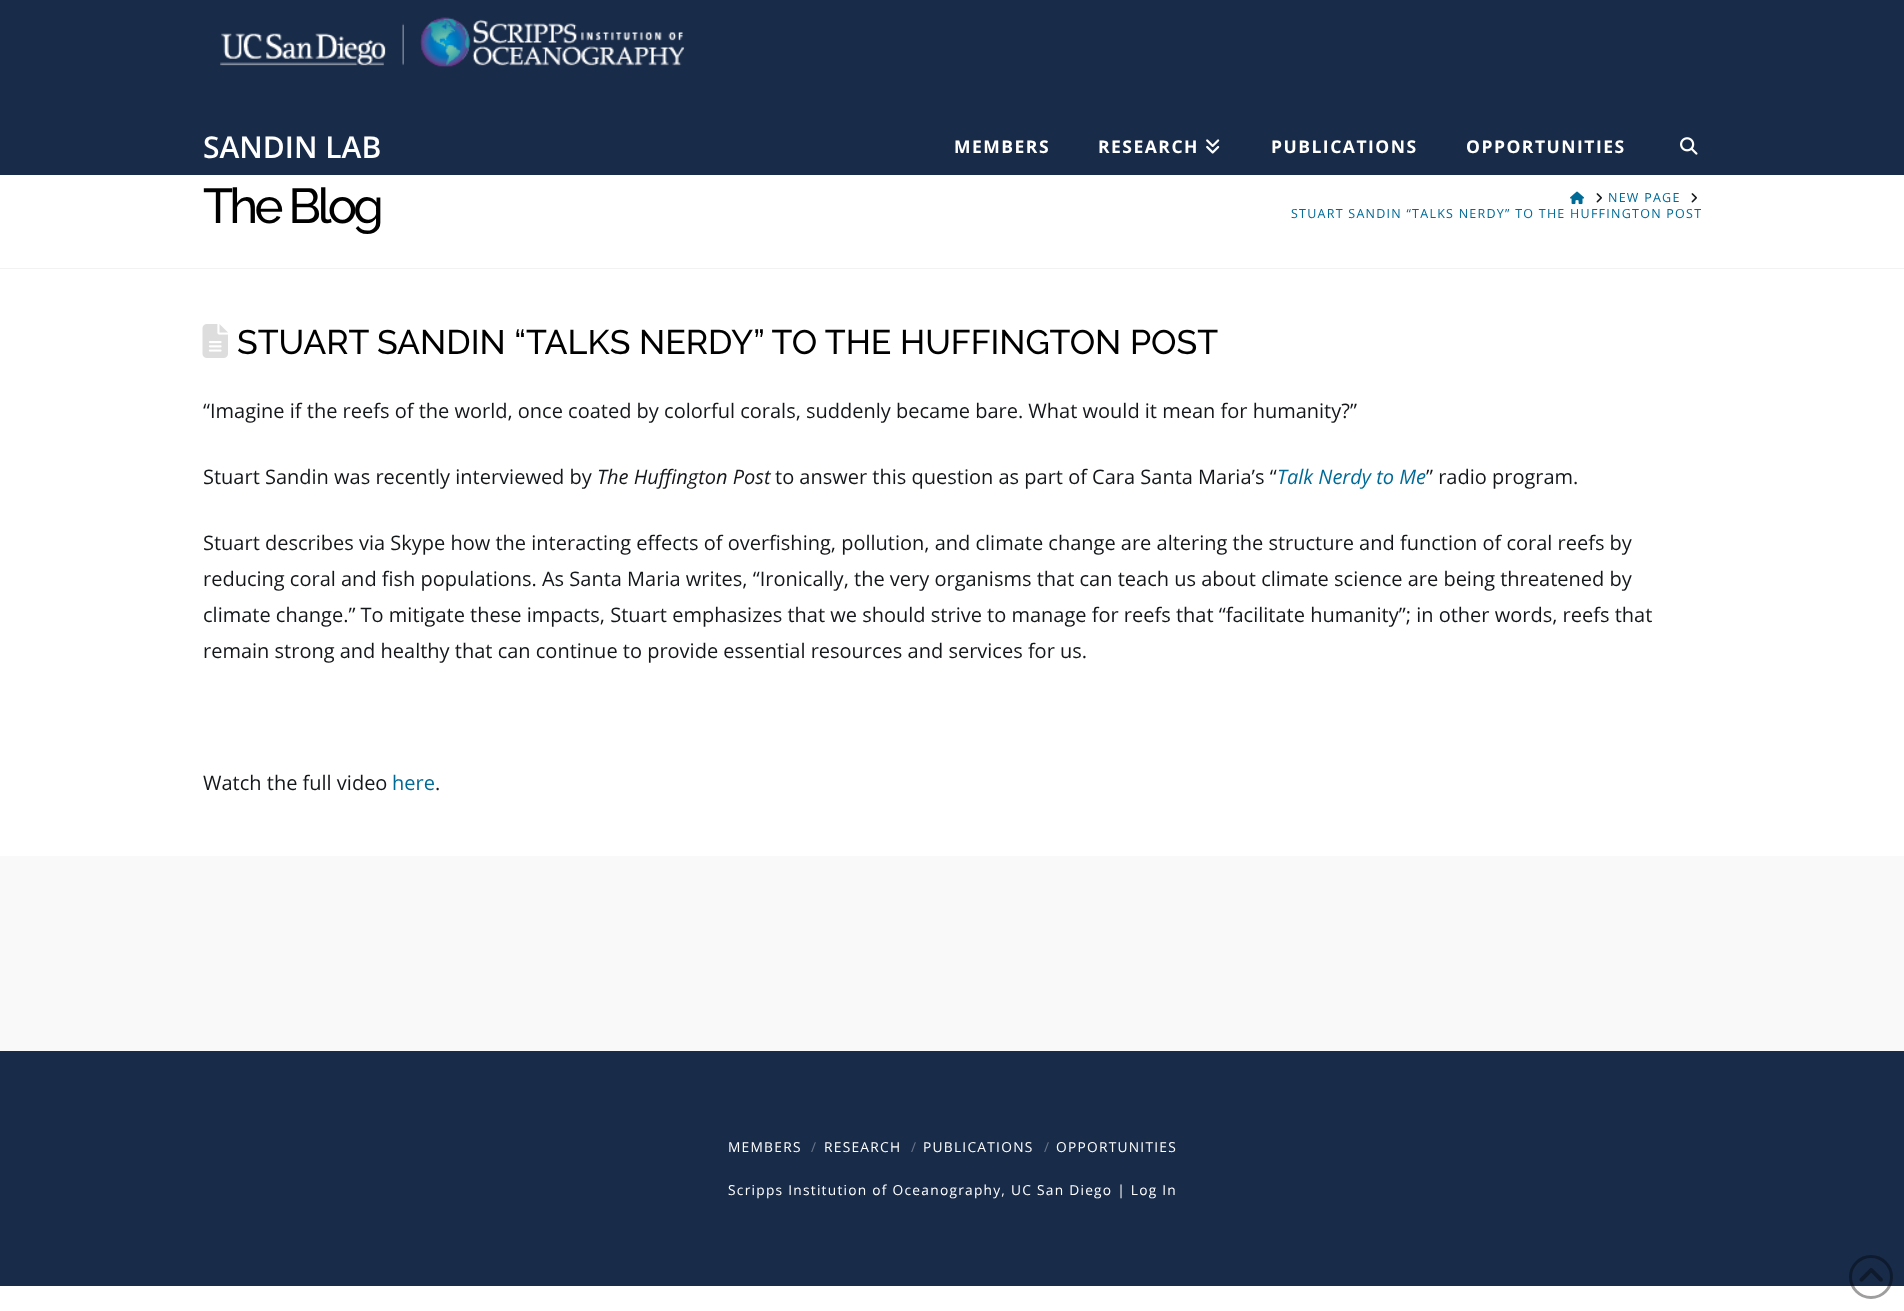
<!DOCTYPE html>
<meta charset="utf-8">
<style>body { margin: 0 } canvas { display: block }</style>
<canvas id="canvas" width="1904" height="1311"></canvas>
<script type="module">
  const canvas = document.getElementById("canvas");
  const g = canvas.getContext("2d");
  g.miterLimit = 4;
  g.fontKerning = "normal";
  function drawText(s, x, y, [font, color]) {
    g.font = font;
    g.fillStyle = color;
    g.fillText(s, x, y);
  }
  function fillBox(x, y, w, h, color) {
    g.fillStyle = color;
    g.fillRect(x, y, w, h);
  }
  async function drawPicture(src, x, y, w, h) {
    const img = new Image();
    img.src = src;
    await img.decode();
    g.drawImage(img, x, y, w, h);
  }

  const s1 = ["600 30px Open Sans", "#FFFFFF"];
  const s2 = ["bold 17.5px Open Sans", "#FFFFFF"];
  const s3 = ["100 49px Raleway", "#000000"];
  const s4 = ["12.5px Open Sans", "#006A96"];
  const s5 = ["100 34px Raleway", "#000000"];
  const s6 = ["20px Open Sans", "#14171A"];
  const s7 = ["italic 20px Open Sans", "#14171A"];
  const s8 = ["italic 20px Open Sans", "#006A96"];
  const s9 = ["20px Open Sans", "#006A96"];
  const s10 = ["13.75px Open Sans", "#FFFFFF"];
  const s11 = ["13.75px Open Sans", "#697589"];

  fillBox(0, 0, 1904, 1311, "#FFFFFF");
  fillBox(0, 0, 1904, 175, "#182B49");
  await drawPicture("pic1.png", 220, 17, 465, 51);
  drawText("SANDIN LAB", 203, 158, s1);
  g.letterSpacing = "1.5px";
  drawText("MEMBERS", 954, 153, s2);
  drawText("RESEARCH", 1098, 153, s2);
  await drawPicture("pic2.png", 1206, 139, 14, 15);
  drawText("PUBLICATIONS", 1271, 153, s2);
  drawText("OPPORTUNITIES", 1466, 153, s2);
  await drawPicture("pic3.png", 1680, 137, 18, 18);
  fillBox(0, 268, 1904, 1, "#F2F2F2");
  g.letterSpacing = "-3.75px";
  drawText("The Blog", 203, 223, s3);
  await drawPicture("pic4.png", 1570, 191, 14, 14);
  await drawPicture("pic5.png", 1596, 193, 6, 10);
  g.letterSpacing = "1.25px";
  drawText("NEW PAGE", 1608, 202, s4);
  await drawPicture("pic5.png", 1691, 193, 6, 10);
  drawText("STUART SANDIN “TALKS NERDY” TO THE HUFFINGTON POST", 1291, 218, s4);
  await drawPicture("pic6.png", 202, 324, 26, 34);
  g.letterSpacing = "0px";
  drawText("STUART SANDIN “TALKS NERDY” TO THE HUFFINGTON POST", 237, 354, s5);
  drawText("“Imagine if the reefs of the world, once coated by colorful corals, suddenly became bare. What would it mean for humanity?”", 203, 418, s6);
  drawText("Stuart Sandin was recently interviewed by", 203, 484, s6);
  drawText("The Huffington Post", 597, 484, s7);
  drawText("to answer this question as part of Cara Santa Maria’s “", 775, 484, s6);
  drawText("Talk Nerdy to Me", 1277, 484, s8);
  drawText("” radio program.", 1426, 484, s6);
  drawText("Stuart describes via Skype how the interacting effects of overfishing, pollution, and climate change are altering the structure and function of coral reefs by", 203, 550, s6);
  drawText("reducing coral and fish populations. As Santa Maria writes, “Ironically, the very organisms that can teach us about climate science are being threatened by", 203, 586, s6);
  drawText("climate change.” To mitigate these impacts, Stuart emphasizes that we should strive to manage for reefs that “facilitate humanity”; in other words, reefs that", 203, 622, s6);
  drawText("remain strong and healthy that can continue to provide essential resources and services for us.", 203, 658, s6);
  drawText("Watch the full video", 203, 790, s6);
  drawText("here", 392, 790, s9);
  drawText(".", 435, 790, s6);
  fillBox(0, 856, 1904, 195, "#F9F9F9");
  fillBox(0, 1051, 1904, 235, "#182B49");
  g.letterSpacing = "1.25px";
  drawText("MEMBERS", 728, 1152, s10);
  g.letterSpacing = "0px";
  drawText("/", 811, 1152, s11);
  g.letterSpacing = "1.25px";
  drawText("RESEARCH", 824, 1152, s10);
  g.letterSpacing = "0px";
  drawText("/", 911, 1152, s11);
  g.letterSpacing = "1.25px";
  drawText("PUBLICATIONS", 923, 1152, s10);
  g.letterSpacing = "0px";
  drawText("/", 1044, 1152, s11);
  g.letterSpacing = "1.25px";
  drawText("OPPORTUNITIES", 1056, 1152, s10);
  drawText("Scripps Institution of Oceanography, UC San Diego | Log In", 728, 1195, s10);
  g.beginPath();
  g.arc(1871, 1277, 20.5, 0, Math.PI * 2);
  g.strokeStyle = "rgba(0, 0, 0, 0.38)";
  g.lineWidth = 3;
  g.stroke();
  await drawPicture("pic7.png", 1859, 1268, 24, 14);
</script>
